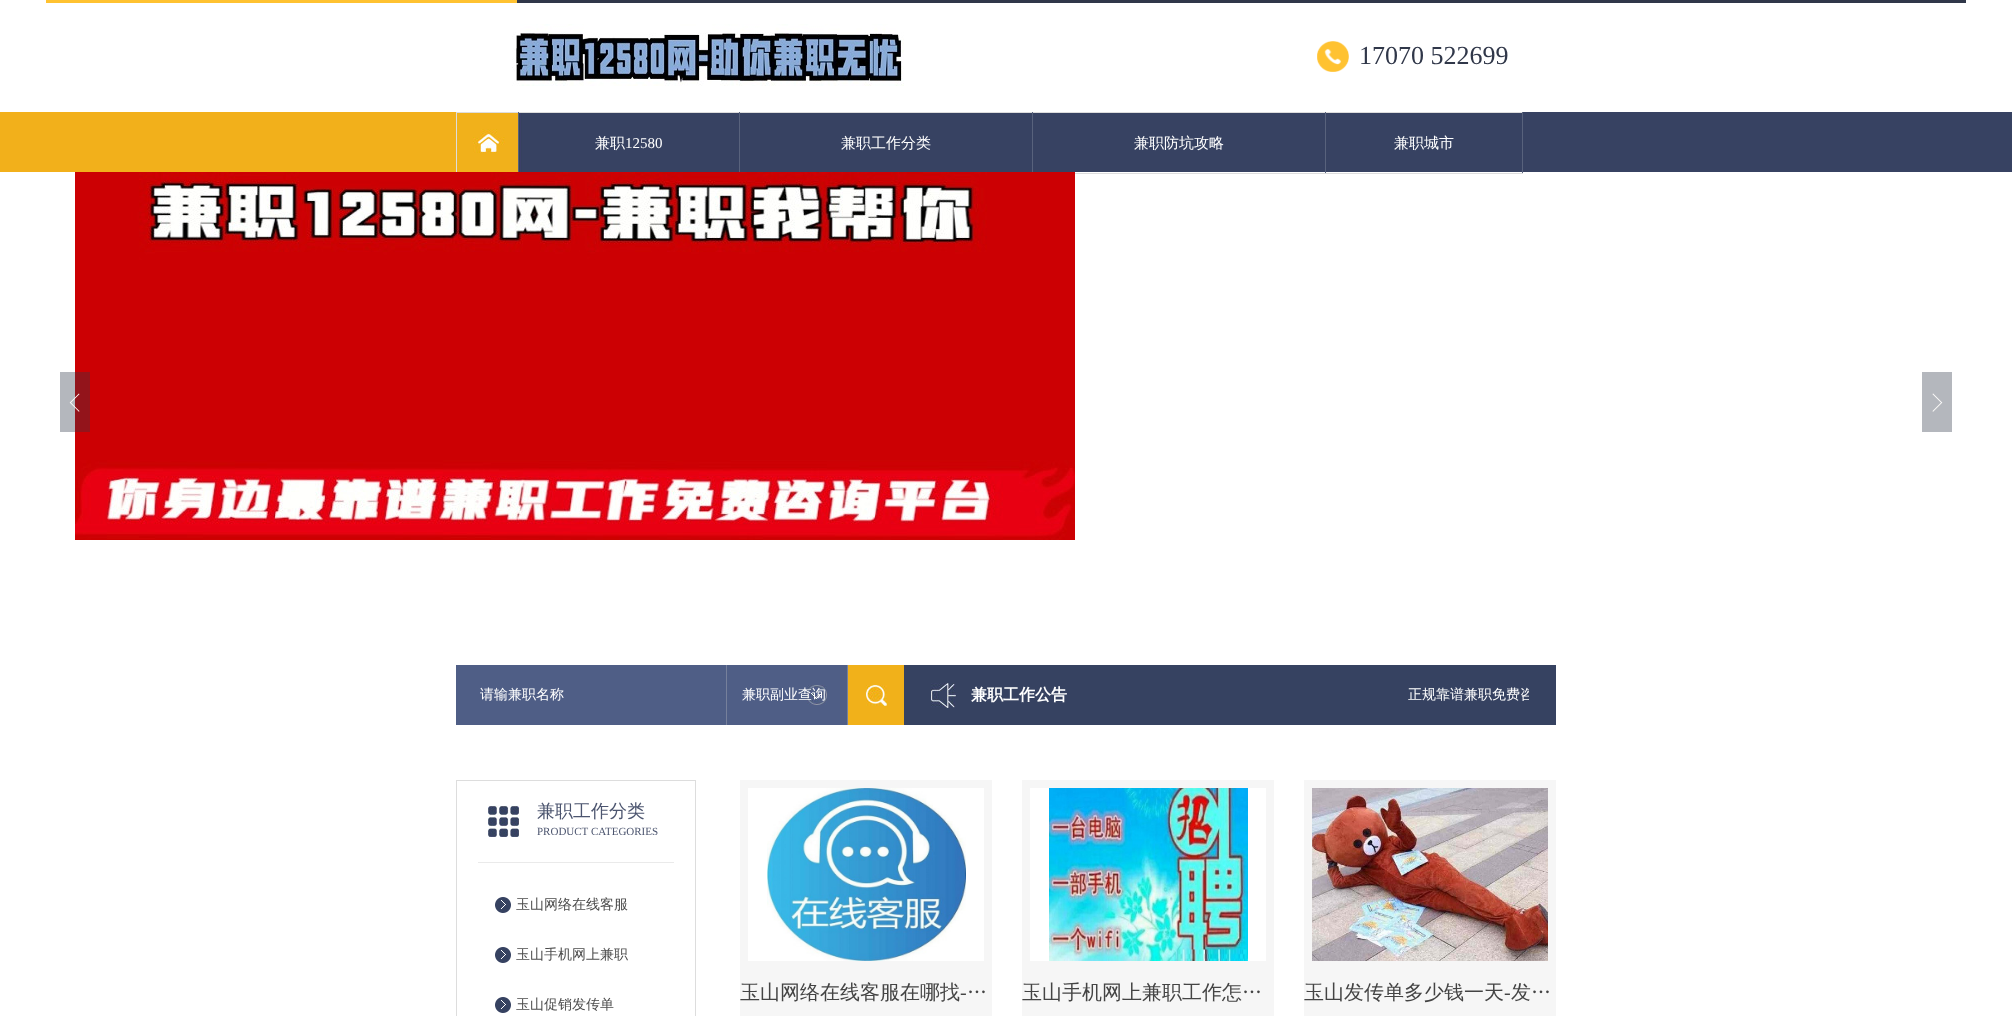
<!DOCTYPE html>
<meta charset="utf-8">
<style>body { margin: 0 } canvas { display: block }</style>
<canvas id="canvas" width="2012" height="1016"></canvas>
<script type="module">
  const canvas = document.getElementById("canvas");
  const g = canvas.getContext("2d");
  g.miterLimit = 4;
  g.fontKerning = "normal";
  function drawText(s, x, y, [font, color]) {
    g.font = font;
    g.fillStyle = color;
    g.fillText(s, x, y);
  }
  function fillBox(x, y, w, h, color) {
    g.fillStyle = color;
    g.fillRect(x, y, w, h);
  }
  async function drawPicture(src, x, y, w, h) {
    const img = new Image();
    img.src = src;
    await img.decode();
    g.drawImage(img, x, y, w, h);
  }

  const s1 = ["26px Liberation Serif", "#303749"];
  const s2 = ["500 15px WenQuanYi Zen Hei", "#FFFFFF"];
  const s3 = ["15px Liberation Serif", "#FFFFFF"];
  const s4 = ["500 14px WenQuanYi Zen Hei", "#FFFFFF"];
  const s5 = ["bold 16px WenQuanYi Zen Hei", "#FFFFFF"];
  const s6 = ["500 18px WenQuanYi Zen Hei", "#4C556F"];
  const s7 = ["11px Liberation Serif", "#4C556F"];
  const s8 = ["500 14px WenQuanYi Zen Hei", "#4C4C4C"];
  const s9 = ["500 20px WenQuanYi Zen Hei", "#444444"];
  const s10 = ["20px Liberation Serif", "#444444"];

  fillBox(0, 0, 2012, 1016, "#FFFFFF");
  await drawPicture("pic1.png", 46, 0, 1920, 3);
  await drawPicture("pic2.png", 512, 24, 392, 62);
  await drawPicture("pic3.png", 1317, 41, 32, 31);
  drawText("17070 522699", 1359, 64, s1);
  await drawPicture("pic4.png", 0, 112, 2012, 60);
  fillBox(456, 112, 1067, 1, "#DDDDDD");
  fillBox(518, 112, 1, 62, "#58627C");
  fillBox(456, 112, 1, 62, "#DDDDDD");
  await drawPicture("pic5.png", 457, 113, 61, 59);
  fillBox(739, 112, 1, 62, "#58627C");
  drawText("兼职", 595, 148, s2);
  drawText("12580", 625, 148, s3);
  fillBox(1032, 112, 1, 62, "#58627C");
  drawText("兼职工作分类", 841, 148, s2);
  fillBox(1522, 112, 1, 62, "#58627C");
  fillBox(1325, 173, 198, 1, "#DDDDDD");
  fillBox(1325, 112, 1, 62, "#58627C");
  fillBox(1075, 173, 251, 1, "#DDDDDD");
  drawText("兼职防坑攻略", 1134, 148, s2);
  drawText("兼职城市", 1394, 148, s2);
  await drawPicture("pic6.png", 75, 172, 1000, 368);
  await drawPicture("pic7.png", 60, 372, 30, 60);
  await drawPicture("pic8.png", 1922, 372, 30, 60);
  fillBox(904, 665, 652, 60, "#364261");
  fillBox(456, 665, 270, 60, "#4F5E86");
  fillBox(726, 665, 1, 60, "#76809B");
  drawText("请输兼职名称", 480, 699, s4);
  fillBox(727, 665, 120, 60, "#4F5E86");
  await drawPicture("pic9.png", 807, 685, 20, 20);
  drawText("兼职副业查询", 742, 699, s4);
  fillBox(848, 665, 56, 60, "#F1B11A");
  await drawPicture("pic10.png", 866, 685, 21, 21);
  fillBox(847, 665, 1, 60, "#76809B");
  await drawPicture("pic11.png", 931, 683, 25, 25);
  drawText("兼职工作公告", 971, 700, s5);
  g.save();
  g.beginPath();
  g.rect(1059, 665, 470, 60);
  g.clip();
  drawText("正规靠谱兼职免费咨", 1408, 699, s4);
  g.restore();
  g.strokeStyle = "#DDDDDD";
  g.strokeRect(456.5, 780.5, 239, 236);
  await drawPicture("pic12.png", 488, 805, 32, 32);
  fillBox(478, 862, 196, 1, "#EAEAEA");
  drawText("兼职工作分类", 537, 817, s6);
  drawText("PRODUCT CATEGORIES", 537, 835, s7);
  await drawPicture("pic13.png", 495, 897, 16, 16);
  drawText("玉山网络在线客服", 516, 909, s8);
  await drawPicture("pic13.png", 495, 947, 16, 16);
  drawText("玉山手机网上兼职", 516, 959, s8);
  await drawPicture("pic13.png", 495, 997, 16, 16);
  drawText("玉山促销发传单", 516, 1009, s8);
  fillBox(740, 780, 252, 236, "#F6F6F6");
  fillBox(748, 788, 236, 173, "#FFFFFF");
  await drawPicture("pic14.png", 767, 788, 199, 173);
  drawText("玉山网络在线客服在哪找", 740, 999, s9);
  drawText("…", 967, 999, s9);
  drawText("-", 960, 999, s10);
  fillBox(1022, 780, 252, 236, "#F6F6F6");
  fillBox(1030, 788, 236, 173, "#FFFFFF");
  await drawPicture("pic15.png", 1049, 788, 199, 173);
  drawText("玉山手机网上兼职工作怎…", 1022, 999, s9);
  fillBox(1304, 780, 252, 236, "#F6F6F6");
  await drawPicture("pic16.png", 1312, 788, 236, 173);
  drawText("玉山发传单多少钱一天", 1304, 999, s9);
  drawText("-", 1504, 999, s10);
  drawText("发…", 1511, 999, s9);
</script>
